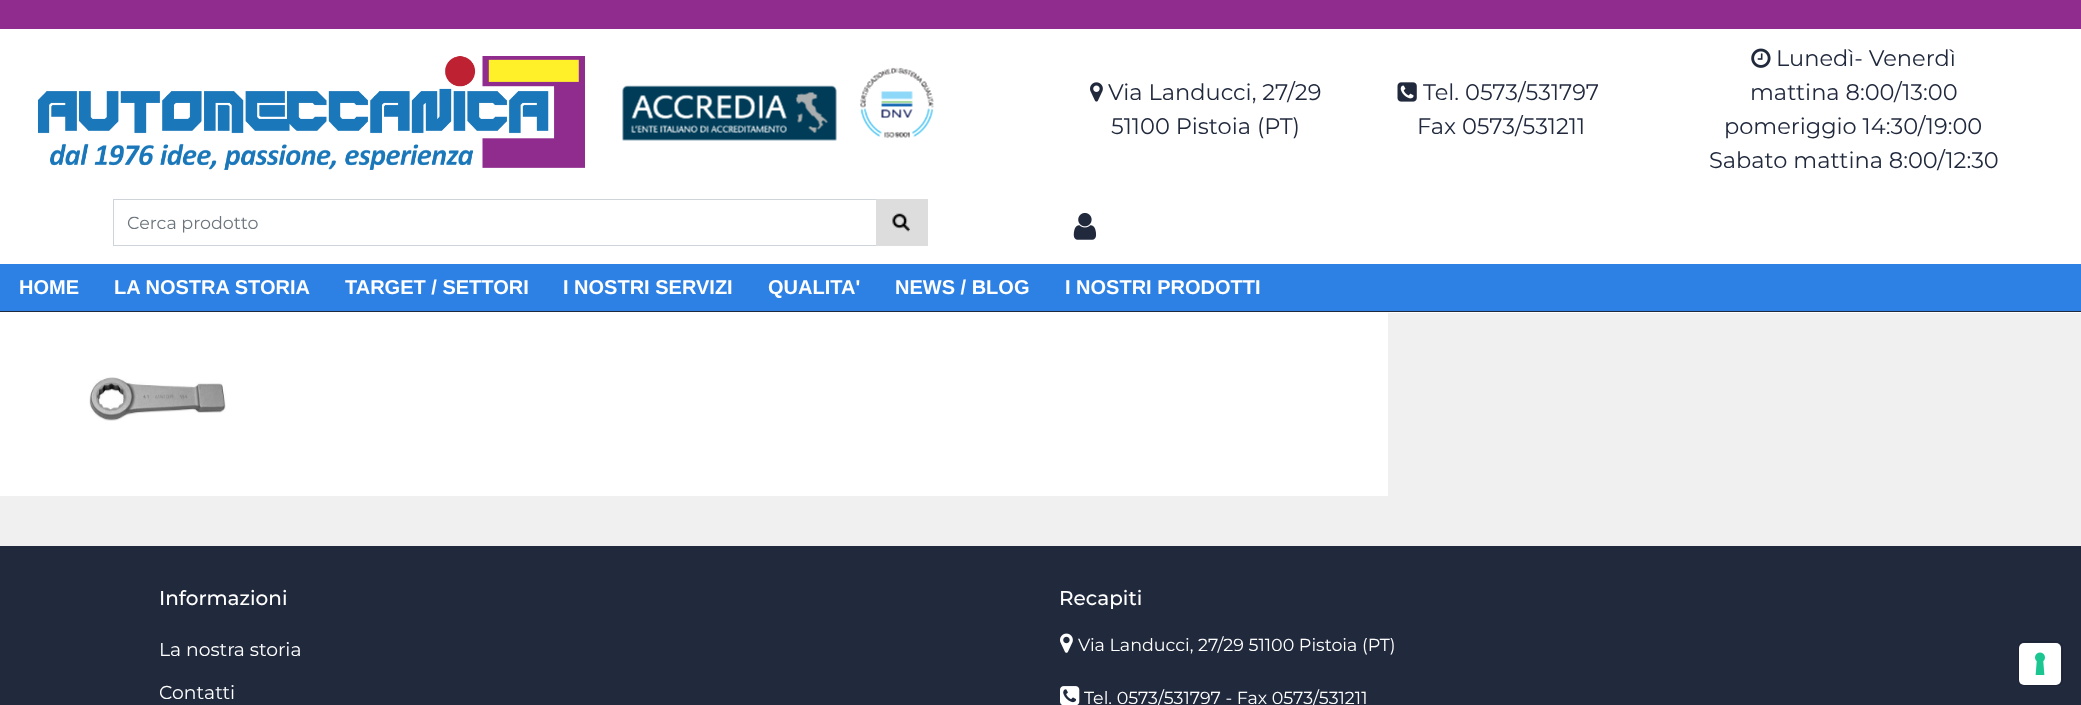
<!DOCTYPE html>
<meta charset="utf-8">
<style>body { margin: 0 } canvas { display: block }</style>
<canvas id="canvas" width="2081" height="705"></canvas>
<script type="module">
  const canvas = document.getElementById("canvas");
  const g = canvas.getContext("2d");
  g.miterLimit = 4;
  g.fontKerning = "normal";
  function drawText(s, x, y, [font, color]) {
    g.font = font;
    g.fillStyle = color;
    g.fillText(s, x, y);
  }
  function fillBox(x, y, w, h, color) {
    g.fillStyle = color;
    g.fillRect(x, y, w, h);
  }
  function fillRounded(x, y, w, h, r, color) {
    g.fillStyle = color;
    g.beginPath();
    g.roundRect(x, y, w, h, r);
    g.fill();
  }
  async function drawPicture(src, x, y, w, h) {
    const img = new Image();
    img.src = src;
    await img.decode();
    g.drawImage(img, x, y, w, h);
  }

  const s1 = ["22.5px Montserrat", "#21293D"];
  const s2 = ["17.5px Montserrat", "#6C757D"];
  const s3 = ["bold 20px Liberation Sans", "#FFFFFF"];
  const s4 = ["500 20px Montserrat", "#FFFFFF"];
  const s5 = ["18.75px Montserrat", "#FFFFFF"];
  const s6 = ["17.5px Montserrat", "#FFFFFF"];

  fillBox(0, 0, 2081, 705, "#F0F0F0");
  fillBox(0, 29, 2081, 284, "#FFFFFF");
  fillBox(0, 311, 2081, 1, "#21293D");
  fillBox(0, 0, 2081, 29, "#902C8E");
  await drawPicture("pic1.png", 38, 56, 547, 114);
  await drawPicture("pic2.png", 622, 85, 215, 56);
  await drawPicture("pic3.png", 860, 67, 74, 71);
  await drawPicture("pic4.png", 1090, 82, 13, 20);
  drawText("Via Landucci, 27/29", 1108, 100, s1);
  drawText("51100 Pistoia (PT)", 1111, 134, s1);
  await drawPicture("pic5.png", 1397, 82, 20, 20);
  drawText("Tel. 0573/531797", 1423, 100, s1);
  drawText("Fax 0573/531211", 1417, 134, s1);
  await drawPicture("pic6.png", 1751, 48, 20, 20);
  drawText("Lunedì- Venerdì", 1776, 66, s1);
  drawText("mattina 8:00/13:00", 1750, 100, s1);
  drawText("pomeriggio 14:30/19:00", 1724, 134, s1);
  drawText("Sabato mattina 8:00/12:30", 1709, 168, s1);
  fillBox(113, 199, 763, 1, "#CED4DA");
  fillBox(113, 245, 763, 1, "#CED4DA");
  fillBox(113, 199, 1, 47, "#CED4DA");
  drawText("Cerca prodotto", 127, 229, s2);
  fillBox(876, 199, 52, 47, "#DDDDDD");
  await drawPicture("pic7.png", 892, 213, 18, 19);
  await drawPicture("pic8.png", 1073, 212, 24, 28);
  fillBox(0, 264, 2081, 47, "#2D80E4");
  drawText("HOME", 19, 294, s3);
  drawText("LA NOSTRA STORIA", 114, 294, s3);
  drawText("TARGET / SETTORI", 345, 294, s3);
  drawText("I NOSTRI SERVIZI", 563, 294, s3);
  drawText("QUALITA'", 768, 294, s3);
  drawText("NEWS / BLOG", 895, 294, s3);
  drawText("I NOSTRI PRODOTTI", 1065, 294, s3);
  fillBox(0, 313, 1388, 183, "#FFFFFF");
  await drawPicture("pic9.png", 89, 377, 137, 44);
  fillBox(0, 546, 2081, 159, "#21293D");
  drawText("Informazioni", 159, 605, s4);
  drawText("La nostra storia", 159, 656, s5);
  drawText("Contatti", 159, 699, s5);
  drawText("Recapiti", 1059, 605, s4);
  await drawPicture("pic10.png", 1060, 633, 13, 20);
  drawText("Via Landucci, 27/29 51100 Pistoia (PT)", 1078, 651, s6);
  await drawPicture("pic11.png", 1060, 686, 20, 19);
  drawText("Tel. 0573/531797 - Fax 0573/531211", 1084, 704, s6);
  g.beginPath();
  g.roundRect(2018.5, 641.5, 44, 44, 5.5);
  g.strokeStyle = "#1C2334";
  g.stroke();
  fillRounded(2019, 643, 42, 42, 5, "#FFFFFF");
  await drawPicture("pic12.png", 2035, 652, 10, 23);
</script>
